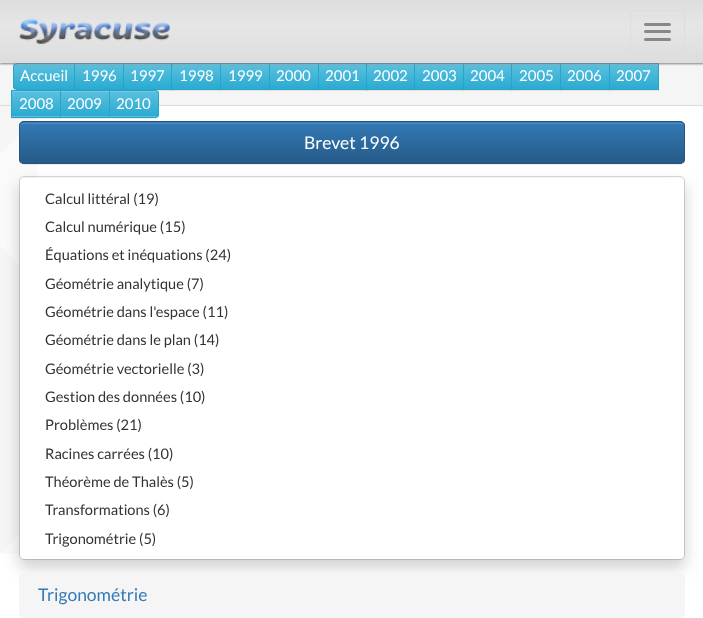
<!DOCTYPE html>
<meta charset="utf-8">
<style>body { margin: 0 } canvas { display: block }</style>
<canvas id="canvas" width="703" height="618"></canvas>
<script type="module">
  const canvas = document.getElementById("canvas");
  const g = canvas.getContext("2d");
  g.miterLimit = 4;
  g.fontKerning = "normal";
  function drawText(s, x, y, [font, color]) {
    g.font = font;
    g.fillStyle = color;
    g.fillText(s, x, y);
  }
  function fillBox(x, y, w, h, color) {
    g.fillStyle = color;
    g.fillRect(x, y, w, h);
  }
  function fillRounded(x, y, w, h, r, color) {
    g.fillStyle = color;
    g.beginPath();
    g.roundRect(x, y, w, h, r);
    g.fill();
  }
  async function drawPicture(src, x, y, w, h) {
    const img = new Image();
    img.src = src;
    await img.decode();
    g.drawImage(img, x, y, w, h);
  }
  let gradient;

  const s1 = ["15px Lato", "#FFFFFF"];
  const s2 = ["17.5px Lato", "#FFFFFF"];
  const s3 = ["14.6px Lato", "#333333"];
  const s4 = ["17.5px Lato", "#337AB7"];

  fillBox(0, 0, 703, 618, "#FFFFFF");
  await drawPicture("pic1.png", 0, 106, 37, 448);
  fillBox(0, 63, 703, 42, "#F5F5F5");
  g.fillStyle = "rgba(0, 0, 0, 0.07)";
  g.filter = "blur(0.5px)";
  g.beginPath();
  g.roundRect(13, 64, 62, 27, 4);
  g.fill();
  g.filter = "none";
  g.save();
  g.beginPath();
  g.roundRect(13, 63, 62, 27, [4, 0, 0, 4]);
  g.clip();
  gradient = g.createLinearGradient(44, 64, 44, 89);
  gradient.addColorStop(0, "#5BC0DE");
  gradient.addColorStop(1, "#2AABD2");
  g.fillStyle = gradient;
  g.fillRect(13, 64, 61, 25);
  g.restore();
  g.fillStyle = "#73C9E3";
  g.beginPath();
  g.moveTo(16, 65);
  g.lineTo(74, 65);
  g.lineTo(74, 64);
  g.lineTo(16, 64);
  g.bezierCurveTo(15, 64, 14, 65, 14, 66);
  g.lineTo(14, 68);
  g.bezierCurveTo(14, 66, 15, 65, 16, 65);
  g.closePath();
  g.fill();
  g.beginPath();
  g.roundRect(13.5, 63.5, 61, 26, [3.5, 0, 0, 3.5]);
  g.strokeStyle = "#28A4C9";
  g.stroke();
  gradient = g.createLinearGradient(99, 64, 99, 89);
  gradient.addColorStop(0, "#5BC0DE");
  gradient.addColorStop(1, "#2AABD2");
  g.fillStyle = gradient;
  g.fillRect(75, 65, 48, 24);
  fillBox(75, 64, 48, 1, "#73C9E3");
  g.strokeRect(74.5, 63.5, 49, 26);
  g.fillStyle = "rgba(0, 0, 0, 0.07)";
  g.filter = "blur(0.5px)";
  g.beginPath();
  g.rect(123, 64, 50, 27);
  g.fill();
  g.filter = "none";
  gradient = g.createLinearGradient(148, 64, 148, 89);
  gradient.addColorStop(0, "#5BC0DE");
  gradient.addColorStop(1, "#2AABD2");
  g.fillStyle = gradient;
  g.fillRect(124, 65, 47, 24);
  fillBox(124, 64, 47, 1, "#73C9E3");
  g.strokeRect(123.5, 63.5, 49, 26);
  g.fillStyle = "rgba(0, 0, 0, 0.07)";
  g.filter = "blur(0.5px)";
  g.beginPath();
  g.rect(171, 64, 50, 27);
  g.fill();
  g.filter = "none";
  gradient = g.createLinearGradient(196, 64, 196, 89);
  gradient.addColorStop(0, "#5BC0DE");
  gradient.addColorStop(1, "#2AABD2");
  g.fillStyle = gradient;
  g.fillRect(172, 64, 48, 25);
  fillBox(173, 64, 47, 1, "#73C9E3");
  g.strokeRect(171.5, 63.5, 49, 26);
  g.fillStyle = "rgba(0, 0, 0, 0.07)";
  g.filter = "blur(0.5px)";
  g.beginPath();
  g.rect(220, 64, 50, 27);
  g.fill();
  g.filter = "none";
  gradient = g.createLinearGradient(245, 64, 245, 89);
  gradient.addColorStop(0, "#5BC0DE");
  gradient.addColorStop(1, "#2AABD2");
  g.fillStyle = gradient;
  g.fillRect(221, 65, 48, 24);
  fillBox(221, 64, 48, 1, "#73C9E3");
  g.strokeRect(220.5, 63.5, 49, 26);
  g.fillStyle = "rgba(0, 0, 0, 0.07)";
  g.filter = "blur(0.5px)";
  g.beginPath();
  g.rect(269, 64, 50, 27);
  g.fill();
  g.filter = "none";
  gradient = g.createLinearGradient(294, 64, 294, 89);
  gradient.addColorStop(0, "#5BC0DE");
  gradient.addColorStop(1, "#2AABD2");
  g.fillStyle = gradient;
  g.fillRect(270, 65, 48, 24);
  fillBox(270, 64, 48, 1, "#73C9E3");
  g.strokeRect(269.5, 63.5, 49, 26);
  g.fillStyle = "rgba(0, 0, 0, 0.07)";
  g.filter = "blur(0.5px)";
  g.beginPath();
  g.rect(318, 64, 50, 27);
  g.fill();
  g.filter = "none";
  gradient = g.createLinearGradient(343, 64, 343, 89);
  gradient.addColorStop(0, "#5BC0DE");
  gradient.addColorStop(1, "#2AABD2");
  g.fillStyle = gradient;
  g.fillRect(319, 65, 47, 24);
  fillBox(319, 64, 47, 1, "#73C9E3");
  g.strokeRect(318.5, 63.5, 49, 26);
  g.fillStyle = "rgba(0, 0, 0, 0.07)";
  g.filter = "blur(0.5px)";
  g.beginPath();
  g.rect(366, 64, 49, 27);
  g.fill();
  g.filter = "none";
  gradient = g.createLinearGradient(391, 64, 391, 89);
  gradient.addColorStop(0, "#5BC0DE");
  gradient.addColorStop(1, "#2AABD2");
  g.fillStyle = gradient;
  g.fillRect(367, 64, 47, 25);
  fillBox(368, 64, 46, 1, "#73C9E3");
  g.strokeRect(366.5, 63.5, 48, 26);
  g.fillStyle = "rgba(0, 0, 0, 0.07)";
  g.filter = "blur(0.5px)";
  g.beginPath();
  g.rect(414, 64, 50, 27);
  g.fill();
  g.filter = "none";
  gradient = g.createLinearGradient(439, 64, 439, 89);
  gradient.addColorStop(0, "#5BC0DE");
  gradient.addColorStop(1, "#2AABD2");
  g.fillStyle = gradient;
  g.fillRect(415, 65, 48, 24);
  fillBox(415, 64, 48, 1, "#73C9E3");
  g.strokeRect(414.5, 63.5, 49, 26);
  g.fillStyle = "rgba(0, 0, 0, 0.07)";
  g.filter = "blur(0.5px)";
  g.beginPath();
  g.rect(463, 64, 50, 27);
  g.fill();
  g.filter = "none";
  gradient = g.createLinearGradient(488, 64, 488, 89);
  gradient.addColorStop(0, "#5BC0DE");
  gradient.addColorStop(1, "#2AABD2");
  g.fillStyle = gradient;
  g.fillRect(464, 65, 47, 24);
  fillBox(464, 64, 47, 1, "#73C9E3");
  g.strokeRect(463.5, 63.5, 49, 26);
  g.fillStyle = "rgba(0, 0, 0, 0.07)";
  g.filter = "blur(0.5px)";
  g.beginPath();
  g.rect(511, 64, 50, 27);
  g.fill();
  g.filter = "none";
  gradient = g.createLinearGradient(536, 64, 536, 89);
  gradient.addColorStop(0, "#5BC0DE");
  gradient.addColorStop(1, "#2AABD2");
  g.fillStyle = gradient;
  g.fillRect(512, 64, 48, 25);
  fillBox(513, 64, 47, 1, "#73C9E3");
  g.strokeRect(511.5, 63.5, 49, 26);
  g.fillStyle = "rgba(0, 0, 0, 0.07)";
  g.filter = "blur(0.5px)";
  g.beginPath();
  g.rect(560, 64, 50, 27);
  g.fill();
  g.filter = "none";
  gradient = g.createLinearGradient(585, 64, 585, 89);
  gradient.addColorStop(0, "#5BC0DE");
  gradient.addColorStop(1, "#2AABD2");
  g.fillStyle = gradient;
  g.fillRect(561, 65, 48, 24);
  fillBox(561, 64, 48, 1, "#73C9E3");
  g.strokeRect(560.5, 63.5, 49, 26);
  g.fillStyle = "rgba(0, 0, 0, 0.07)";
  g.filter = "blur(0.5px)";
  g.beginPath();
  g.rect(609, 64, 50, 27);
  g.fill();
  g.filter = "none";
  gradient = g.createLinearGradient(634, 64, 634, 89);
  gradient.addColorStop(0, "#5BC0DE");
  gradient.addColorStop(1, "#2AABD2");
  g.fillStyle = gradient;
  g.fillRect(610, 65, 48, 24);
  fillBox(610, 64, 48, 1, "#73C9E3");
  g.strokeRect(609.5, 63.5, 49, 26);
  g.fillStyle = "#808080";
  g.filter = "blur(1px)";
  g.beginPath();
  g.rect(0, 1, 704, 63);
  g.fill();
  g.filter = "none";
  gradient = g.createLinearGradient(352, 0, 352, 63);
  gradient.addColorStop(0, "#DDDDDD");
  gradient.addColorStop(0.4, "#E6E6E6");
  gradient.addColorStop(1, "#DDDDDD");
  g.fillStyle = gradient;
  g.fillRect(0, 0, 703, 63);
  await drawPicture("pic2.png", 19, 18, 151, 26);
  g.beginPath();
  g.roundRect(630.5, 10.5, 54, 42, 4.5);
  g.strokeStyle = "#DDDDDD";
  g.stroke();
  fillRounded(644, 23, 27, 3, 1.5, "#888888");
  fillRounded(644, 30, 27, 3, 1.5, "#888888");
  fillRounded(644, 38, 27, 3, 1.5, "#888888");
  fillBox(0, 105, 703, 1, "#DCDCDC");
  drawText("Accueil", 20, 81, s1);
  drawText("1996", 82, 81, s1);
  drawText("1997", 130, 81, s1);
  drawText("1998", 179, 81, s1);
  drawText("1999", 228, 81, s1);
  drawText("2000", 276, 81, s1);
  drawText("2001", 325, 81, s1);
  drawText("2002", 373, 81, s1);
  drawText("2003", 422, 81, s1);
  drawText("2004", 470, 81, s1);
  drawText("2005", 519, 81, s1);
  drawText("2006", 567, 81, s1);
  drawText("2007", 616, 81, s1);
  g.fillStyle = "rgba(0, 0, 0, 0.07)";
  g.filter = "blur(0.5px)";
  g.beginPath();
  g.rect(11, 91, 50, 28);
  g.fill();
  g.filter = "none";
  fillBox(12, 116, 48, 1, "#5BC0DE");
  gradient = g.createLinearGradient(36, 91, 36, 116);
  gradient.addColorStop(0, "#5BC0DE");
  gradient.addColorStop(1, "#2AABD2");
  g.fillStyle = gradient;
  g.fillRect(12, 91, 48, 25);
  fillBox(13, 91, 47, 1, "#73C9E3");
  g.strokeStyle = "#28A4C9";
  g.strokeRect(11.5, 90.5, 49, 27);
  drawText("2008", 19, 109, s1);
  g.fillStyle = "rgba(0, 0, 0, 0.07)";
  g.filter = "blur(0.5px)";
  g.beginPath();
  g.rect(60, 91, 50, 28);
  g.fill();
  g.filter = "none";
  fillBox(61, 116, 48, 1, "#5BC0DE");
  gradient = g.createLinearGradient(85, 91, 85, 116);
  gradient.addColorStop(0, "#5BC0DE");
  gradient.addColorStop(1, "#2AABD2");
  g.fillStyle = gradient;
  g.fillRect(61, 92, 48, 24);
  fillBox(61, 91, 48, 1, "#73C9E3");
  g.strokeRect(60.5, 90.5, 49, 27);
  drawText("2009", 67, 109, s1);
  g.fillStyle = "rgba(0, 0, 0, 0.07)";
  g.filter = "blur(0.5px)";
  g.beginPath();
  g.roundRect(109, 91, 50, 28, 4);
  g.fill();
  g.filter = "none";
  g.fillStyle = "#5BC0DE";
  g.beginPath();
  g.roundRect(109, 90, 50, 28, [0, 4, 4, 0]);
  g.fill();
  g.save();
  g.beginPath();
  g.roundRect(109, 90, 50, 28, [0, 4, 4, 0]);
  g.clip();
  gradient = g.createLinearGradient(134, 91, 134, 116);
  gradient.addColorStop(0, "#5BC0DE");
  gradient.addColorStop(1, "#2AABD2");
  g.fillStyle = gradient;
  g.fillRect(110, 91, 49, 25);
  g.restore();
  g.fillStyle = "#73C9E3";
  g.beginPath();
  g.moveTo(110, 92);
  g.lineTo(155, 92);
  g.lineTo(157, 92);
  g.bezierCurveTo(158, 94, 158, 97, 158, 99);
  g.lineTo(158, 94);
  g.bezierCurveTo(158, 92, 157, 91, 156, 91);
  g.lineTo(110, 91);
  g.closePath();
  g.moveTo(158, 111);
  g.lineTo(158, 114);
  g.closePath();
  g.fill("evenodd");
  g.beginPath();
  g.roundRect(109.5, 90.5, 49, 27, [0, 3.5, 3.5, 0]);
  g.stroke();
  drawText("2010", 116, 109, s1);
  g.fillStyle = "rgba(0, 0, 0, 0.07)";
  g.filter = "blur(0.5px)";
  g.beginPath();
  g.roundRect(19, 123, 666, 42, 5);
  g.fill();
  g.filter = "none";
  fillRounded(19, 121, 666, 43, 5, "#337AB7");
  g.save();
  g.beginPath();
  g.roundRect(19, 121, 666, 43, 5);
  g.clip();
  gradient = g.createLinearGradient(352, 122, 352, 163);
  gradient.addColorStop(0, "#337AB7");
  gradient.addColorStop(1, "#265A88");
  g.fillStyle = gradient;
  g.fillRect(19, 123, 666, 40);
  g.restore();
  g.fillStyle = "#528DC0";
  g.beginPath();
  g.moveTo(24, 124);
  g.lineTo(680, 124);
  g.bezierCurveTo(682, 124, 684, 125, 684, 128);
  g.bezierCurveTo(684, 125, 683, 123, 680, 123);
  g.lineTo(24, 123);
  g.lineTo(21, 124);
  g.lineTo(20, 125);
  g.lineTo(20, 128);
  g.bezierCurveTo(20, 125, 22, 124, 24, 124);
  g.closePath();
  g.fill();
  g.beginPath();
  g.roundRect(19.5, 121.5, 665, 42, 4.5);
  g.strokeStyle = "#245580";
  g.stroke();
  drawText("Brevet 1996", 304, 149, s2);
  g.fillStyle = "rgba(0, 0, 0, 0.18)";
  g.filter = "blur(7.5px)";
  g.beginPath();
  g.roundRect(19, 184, 666, 384, 5);
  g.fill();
  g.filter = "none";
  fillRounded(20, 178, 664, 381, 4, "#FFFFFF");
  g.beginPath();
  g.roundRect(19.5, 176.5, 665, 383, 4.5);
  g.strokeStyle = "rgba(0, 0, 0, 0.15)";
  g.stroke();
  drawText("Calcul littéral (19)", 45, 204, s3);
  drawText("Calcul numérique (15)", 45, 232, s3);
  drawText("Équations et inéquations (24)", 45, 260, s3);
  drawText("Géométrie analytique (7)", 45, 289, s3);
  drawText("Géométrie dans l'espace (11)", 45, 317, s3);
  drawText("Géométrie dans le plan (14)", 45, 345, s3);
  drawText("Géométrie vectorielle (3)", 45, 374, s3);
  drawText("Gestion des données (10)", 45, 402, s3);
  drawText("Problèmes (21)", 45, 430, s3);
  drawText("Racines carrées (10)", 45, 459, s3);
  drawText("Théorème de Thalès (5)", 45, 487, s3);
  drawText("Transformations (6)", 45, 515, s3);
  drawText("Trigonométrie (5)", 45, 544, s3);
  fillRounded(19, 573, 666, 45, 5, "#F5F5F5");
  drawText("Trigonométrie", 38, 601, s4);
</script>
